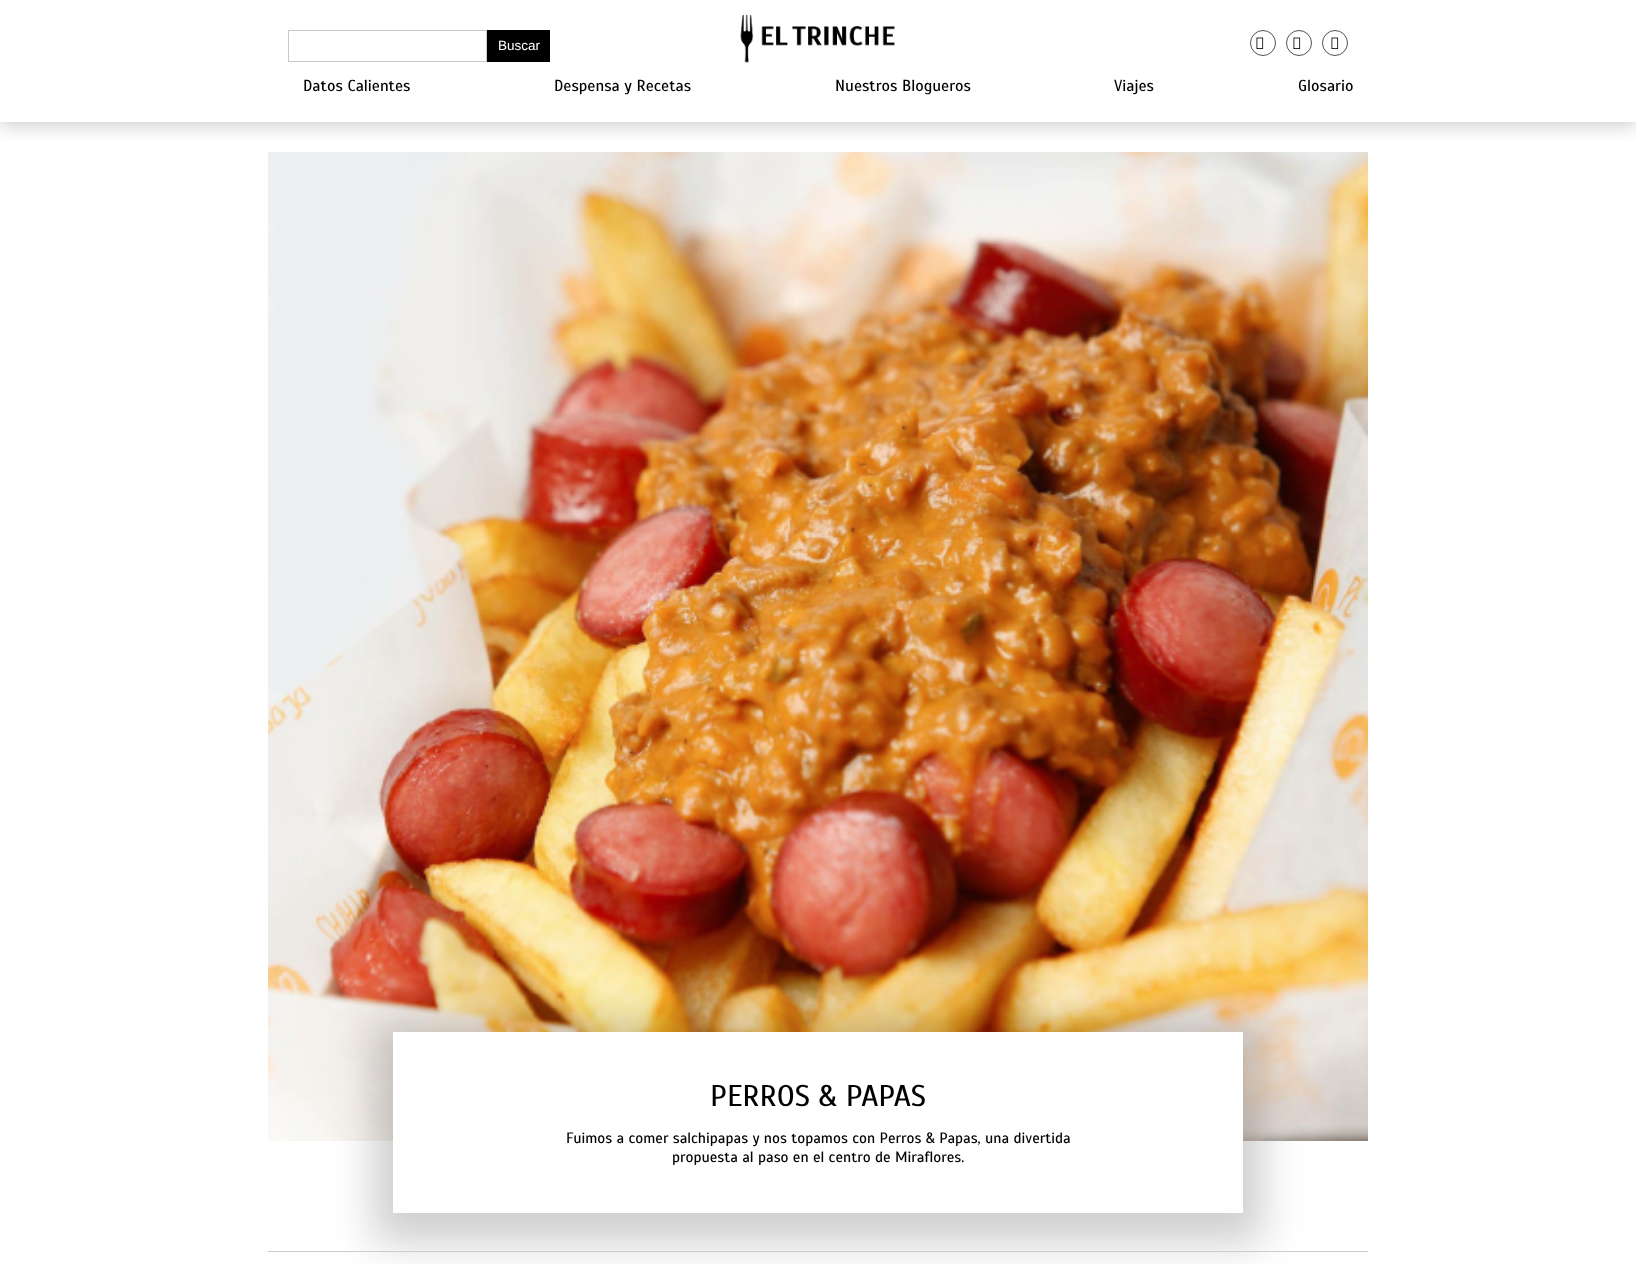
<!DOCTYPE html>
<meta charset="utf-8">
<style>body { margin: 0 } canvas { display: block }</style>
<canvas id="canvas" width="1636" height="1264"></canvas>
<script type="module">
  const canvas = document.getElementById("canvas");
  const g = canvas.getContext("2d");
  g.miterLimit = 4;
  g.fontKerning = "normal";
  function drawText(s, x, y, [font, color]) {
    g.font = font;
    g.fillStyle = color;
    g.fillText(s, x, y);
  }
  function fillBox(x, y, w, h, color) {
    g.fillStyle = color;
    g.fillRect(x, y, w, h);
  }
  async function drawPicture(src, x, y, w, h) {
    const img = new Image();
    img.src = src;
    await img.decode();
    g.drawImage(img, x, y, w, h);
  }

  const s1 = ["13.5px Liberation Sans", "#FFFFFF"];
  const s2 = ["16px Scada", "#000000"];
  const s3 = ["30px Scada", "#000000"];
  const s4 = ["15px Scada", "#000000"];

  fillBox(0, 0, 1636, 1264, "#FFFFFF");
  await drawPicture("pic3.png", 268, 152, 1100, 989);
  g.save();
  g.beginPath();
  g.rect(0, 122, 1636, 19);
  g.clip();
  g.fillStyle = "rgba(137, 137, 137, 0.5)";
  g.filter = "blur(10px)";
  g.beginPath();
  g.rect(0, 2, 1636, 122);
  g.fill();
  g.filter = "none";
  g.restore();
  g.strokeStyle = "#C9C9C9";
  g.strokeRect(288.5, 30.5, 198, 31);
  fillBox(487, 30, 63, 32, "#000000");
  drawText("Buscar", 498, 50, s1);
  await drawPicture("pic1.png", 740, 14, 155, 49);
  g.beginPath();
  g.arc(1263, 43, 12.5, 0, Math.PI * 2);
  g.strokeStyle = "#525252";
  g.stroke();
  await drawPicture("pic2.png", 1256, 37, 8, 12);
  g.beginPath();
  g.arc(1299, 43, 12.5, 0, Math.PI * 2);
  g.stroke();
  await drawPicture("pic2.png", 1293, 37, 8, 12);
  g.beginPath();
  g.arc(1335, 43, 12.5, 0, Math.PI * 2);
  g.stroke();
  await drawPicture("pic2.png", 1331, 37, 8, 12);
  drawText("Datos Calientes", 303, 91, s2);
  drawText("Despensa y Recetas", 554, 91, s2);
  drawText("Nuestros Blogueros", 835, 91, s2);
  drawText("Viajes", 1114, 91, s2);
  drawText("Glosario", 1298, 91, s2);
  g.fillStyle = "rgba(0, 0, 0, 0.19)";
  g.filter = "blur(20px)";
  g.beginPath();
  g.rect(373, 1022, 890, 221);
  g.fill();
  g.filter = "none";
  fillBox(393, 1032, 850, 181, "#FFFFFF");
  drawText("PERROS & PAPAS", 710, 1106, s3);
  drawText("Fuimos a comer salchipapas y nos topamos con Perros & Papas, una divertida", 566, 1143, s4);
  drawText("propuesta al paso en el centro de Miraflores.", 672, 1162, s4);
  fillBox(268, 1251, 1100, 1, "#CCCCCC");
</script>
